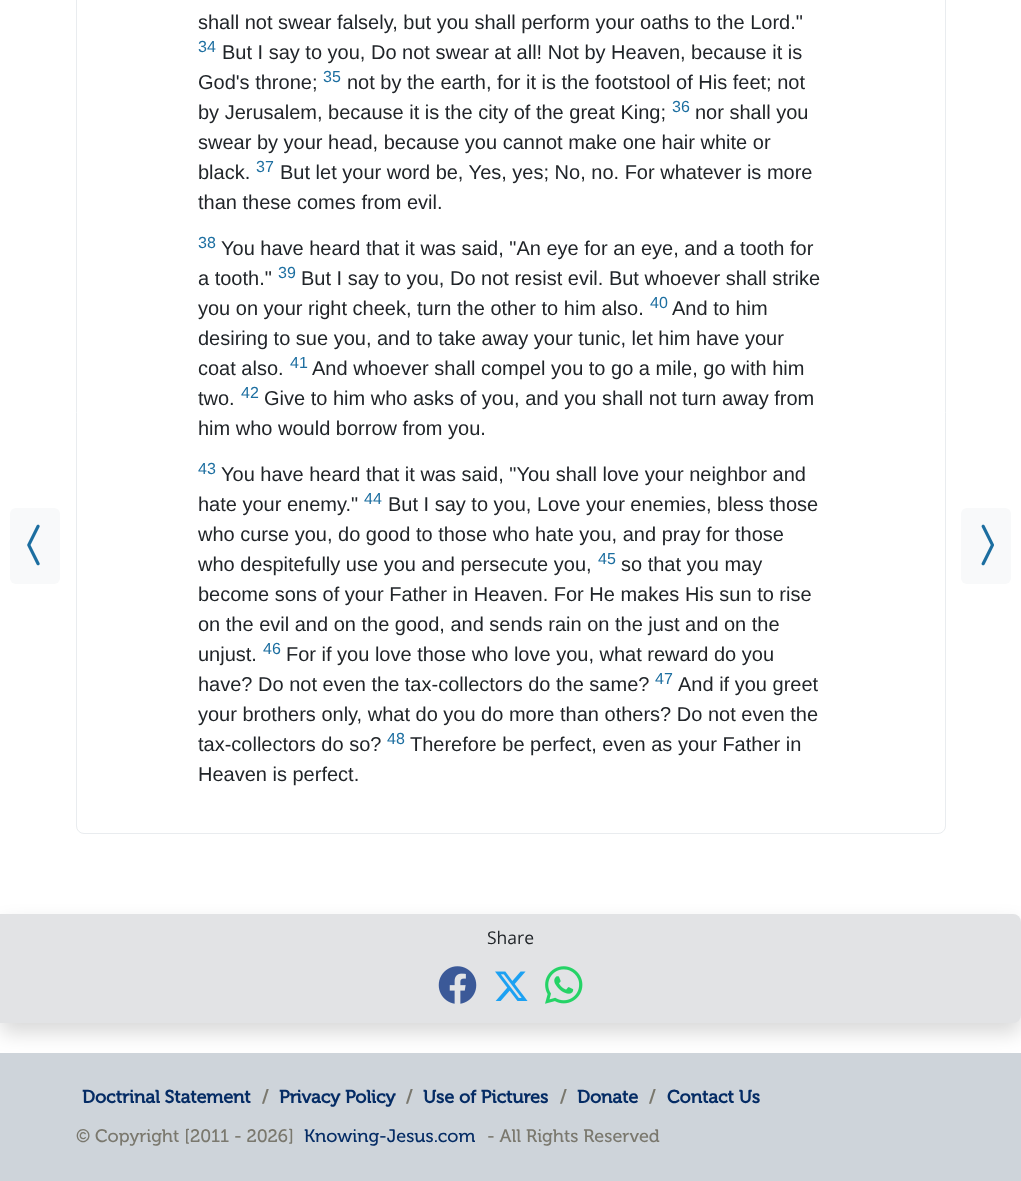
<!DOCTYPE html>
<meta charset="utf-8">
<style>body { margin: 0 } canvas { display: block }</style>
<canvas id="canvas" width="1021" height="1181"></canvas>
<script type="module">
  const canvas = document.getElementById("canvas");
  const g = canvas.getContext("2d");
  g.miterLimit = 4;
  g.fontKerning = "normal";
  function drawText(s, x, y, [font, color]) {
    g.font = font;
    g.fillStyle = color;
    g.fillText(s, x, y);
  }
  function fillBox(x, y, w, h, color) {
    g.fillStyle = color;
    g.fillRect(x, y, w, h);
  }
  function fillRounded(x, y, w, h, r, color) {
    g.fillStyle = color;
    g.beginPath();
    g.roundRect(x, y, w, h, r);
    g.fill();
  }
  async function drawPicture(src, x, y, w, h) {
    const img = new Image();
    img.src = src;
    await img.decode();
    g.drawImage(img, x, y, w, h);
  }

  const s1 = ["20px Liberation Sans", "#212529"];
  const s2 = ["16px Liberation Sans", "#1C6EA0"];
  const s3 = ["17.5px Open Sans", "#212529"];
  const s4 = ["bold 18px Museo", "#052C65"];
  const s5 = ["bold 18px Museo", "#7A786E"];
  const s6 = ["18px Museo", "#7A786E"];
  const s7 = ["18px Museo", "#052C65"];

  fillBox(0, 0, 1021, 1181, "#FFFFFF");
  g.beginPath();
  g.roundRect(76.5, -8.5, 869, 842, 7.5);
  g.strokeStyle = "#E9ECEF";
  g.stroke();
  fillRounded(10, 508, 50, 76, 6, "#F8F9FA");
  await drawPicture("pic1.png", 27, 524, 13, 42);
  drawText("shall not swear falsely, but you shall perform your oaths to the Lord.\"", 198, 29, s1);
  drawText("34", 198, 52, s2);
  drawText("But I say to you, Do not swear at all! Not by Heaven, because it is", 222, 59, s1);
  drawText("God's throne;", 198, 89, s1);
  drawText("35", 323, 82, s2);
  drawText("not by the earth, for it is the footstool of His feet; not", 347, 89, s1);
  drawText("by Jerusalem, because it is the city of the great King;", 198, 119, s1);
  drawText("36", 672, 112, s2);
  drawText("nor shall you", 695, 119, s1);
  drawText("swear by your head, because you cannot make one hair white or", 198, 149, s1);
  drawText("black.", 198, 179, s1);
  drawText("37", 256, 172, s2);
  drawText("But let your word be, Yes, yes; No, no. For whatever is more", 280, 179, s1);
  drawText("than these comes from evil.", 198, 209, s1);
  drawText("38", 198, 248, s2);
  drawText("You have heard that it was said, \"An eye for an eye, and a tooth for", 221, 255, s1);
  drawText("a tooth.\"", 198, 285, s1);
  drawText("39", 278, 278, s2);
  drawText("But I say to you, Do not resist evil. But whoever shall strike", 301, 285, s1);
  drawText("you on your right cheek, turn the other to him also.", 198, 315, s1);
  drawText("40", 650, 308, s2);
  drawText("And to him", 672, 315, s1);
  drawText("desiring to sue you, and to take away your tunic, let him have your", 198, 345, s1);
  drawText("coat also.", 198, 375, s1);
  drawText("41", 290, 368, s2);
  drawText("And whoever shall compel you to go a mile, go with him", 312, 375, s1);
  drawText("two.", 198, 405, s1);
  drawText("42", 241, 398, s2);
  drawText("Give to him who asks of you, and you shall not turn away from", 264, 405, s1);
  drawText("him who would borrow from you.", 198, 435, s1);
  drawText("43", 198, 474, s2);
  drawText("You have heard that it was said, \"You shall love your neighbor and", 221, 481, s1);
  drawText("hate your enemy.\"", 198, 511, s1);
  drawText("44", 364, 504, s2);
  drawText("But I say to you, Love your enemies, bless those", 388, 511, s1);
  drawText("who curse you, do good to those who hate you, and pray for those", 198, 541, s1);
  drawText("who despitefully use you and persecute you,", 198, 571, s1);
  drawText("45", 598, 564, s2);
  drawText("so that you may", 621, 571, s1);
  drawText("become sons of your Father in Heaven. For He makes His sun to rise", 198, 601, s1);
  drawText("on the evil and on the good, and sends rain on the just and on the", 198, 631, s1);
  drawText("unjust.", 198, 661, s1);
  drawText("46", 263, 654, s2);
  drawText("For if you love those who love you, what reward do you", 286, 661, s1);
  drawText("have? Do not even the tax-collectors do the same?", 198, 691, s1);
  drawText("47", 655, 684, s2);
  drawText("And if you greet", 678, 691, s1);
  drawText("your brothers only, what do you do more than others? Do not even the", 198, 721, s1);
  drawText("tax-collectors do so?", 198, 751, s1);
  drawText("48", 387, 744, s2);
  drawText("Therefore be perfect, even as your Father in", 410, 751, s1);
  drawText("Heaven is perfect.", 198, 781, s1);
  fillRounded(961, 508, 50, 76, 6, "#F8F9FA");
  await drawPicture("pic2.png", 981, 524, 13, 42);
  fillBox(0, 1053, 1021, 128, "#CED4DA");
  g.fillStyle = "rgba(0, 0, 0, 0.15)";
  g.filter = "blur(10px)";
  g.beginPath();
  g.roundRect(0, 924, 1021, 109, 8);
  g.fill();
  g.filter = "none";
  g.fillStyle = "#E2E3E5";
  g.beginPath();
  g.roundRect(0, 914, 1021, 109, [0, 8, 8, 0]);
  g.fill();
  drawText("Share", 487, 944, s3);
  await drawPicture("pic3.png", 438, 966, 39, 38);
  await drawPicture("pic4.png", 495, 971, 33, 30);
  await drawPicture("pic5.png", 545, 966, 38, 38);
  drawText("Doctrinal Statement", 82, 1103, s4);
  drawText("/", 262, 1103, s5);
  drawText("Privacy Policy", 279, 1103, s4);
  drawText("/", 406, 1103, s5);
  drawText("Use of Pictures", 423, 1103, s4);
  drawText("/", 560, 1103, s5);
  drawText("Donate", 577, 1103, s4);
  drawText("/", 649, 1103, s5);
  drawText("Contact Us", 667, 1103, s4);
  drawText("© Copyright [2011 - 2026]", 76, 1142, s6);
  drawText("Knowing-Jesus.com", 304, 1142, s7);
  drawText("- All Rights Reserved", 487, 1142, s6);
</script>
